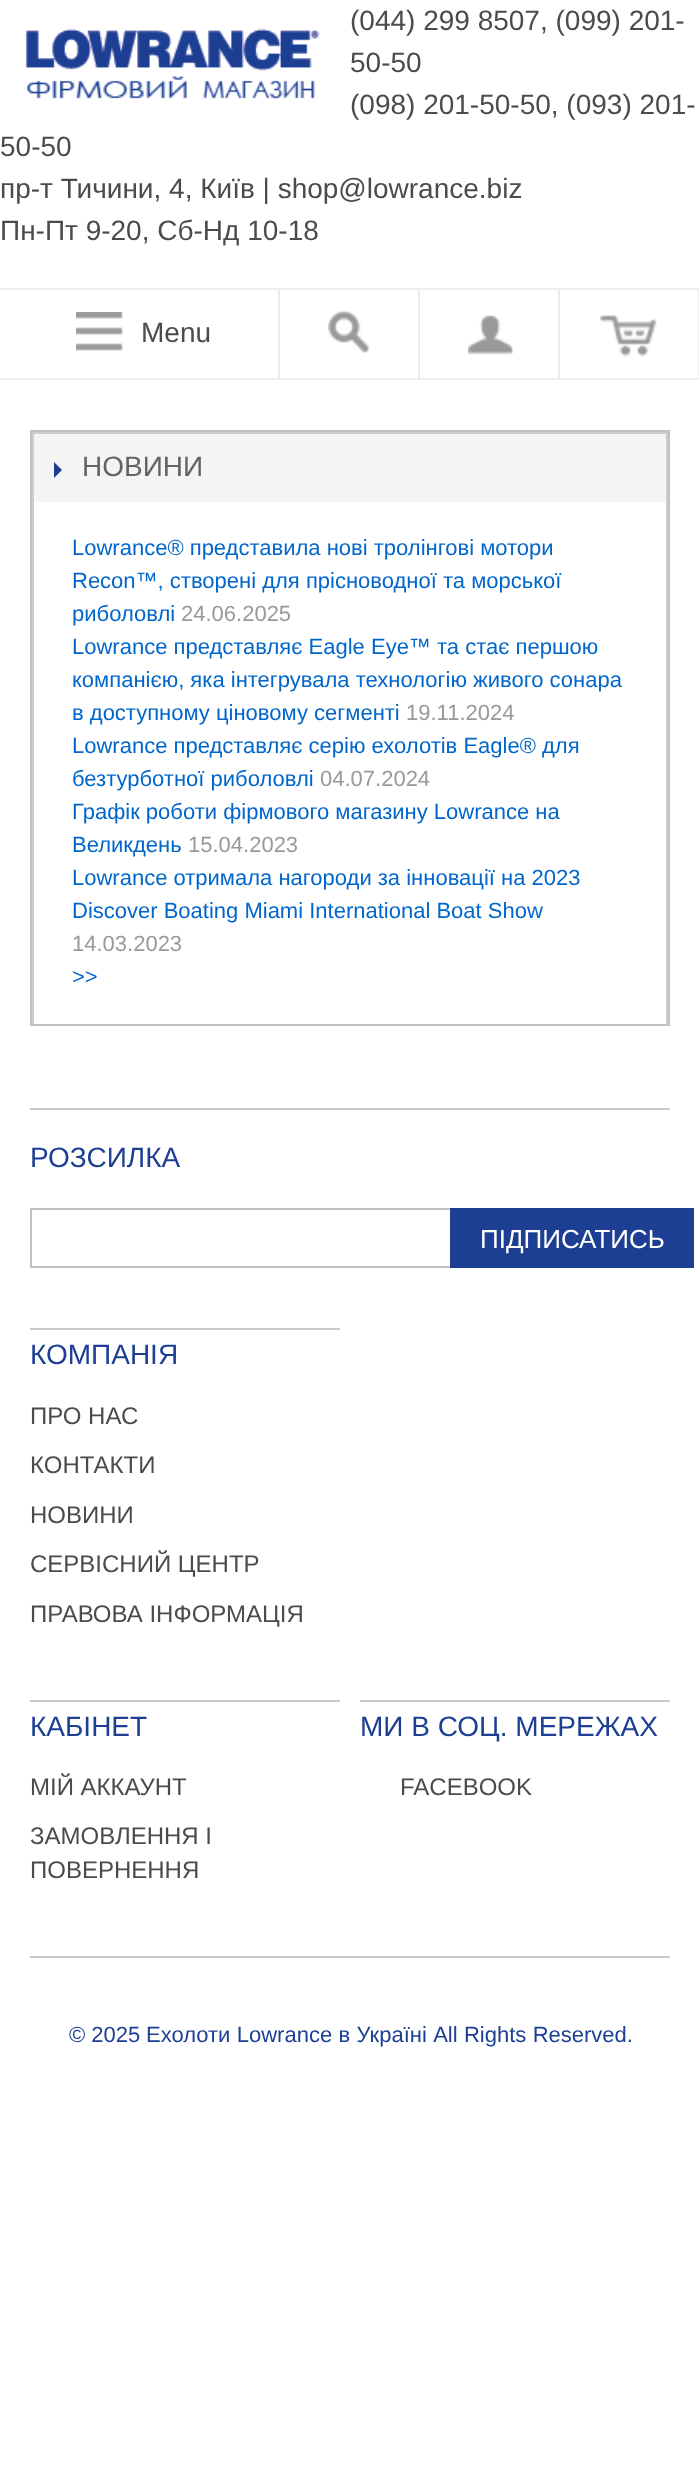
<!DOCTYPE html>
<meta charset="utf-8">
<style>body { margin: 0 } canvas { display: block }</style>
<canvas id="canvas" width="699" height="2489"></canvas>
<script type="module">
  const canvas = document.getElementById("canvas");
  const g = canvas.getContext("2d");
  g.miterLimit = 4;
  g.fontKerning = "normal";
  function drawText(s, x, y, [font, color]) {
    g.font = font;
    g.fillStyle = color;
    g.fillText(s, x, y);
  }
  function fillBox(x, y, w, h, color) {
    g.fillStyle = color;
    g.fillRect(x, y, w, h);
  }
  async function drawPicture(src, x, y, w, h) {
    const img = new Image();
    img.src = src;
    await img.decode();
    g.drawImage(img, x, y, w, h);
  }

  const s1 = ["28px Liberation Sans", "#4B4B4B"];
  const s2 = ["28px Liberation Sans", "#636363"];
  const s3 = ["22px Liberation Sans", "#0066CC"];
  const s4 = ["22px Liberation Sans", "#999999"];
  const s5 = ["28px Liberation Sans", "#1C3F94"];
  const s6 = ["26px Liberation Sans", "#FFFFFF"];
  const s7 = ["24px Liberation Sans", "#4B4B4B"];
  const s8 = ["22px Liberation Sans", "#1C3F94"];

  fillBox(0, 0, 699, 2489, "#FFFFFF");
  drawText("(044) 299 8507, (099) 201-", 350, 30, s1);
  drawText("50-50", 350, 72, s1);
  drawText("(098) 201-50-50, (093) 201-", 350, 114, s1);
  drawText("50-50", 0, 156, s1);
  drawText("пр-т Тичини, 4, Київ | shop@lowrance.biz", 0, 198, s1);
  drawText("Пн-Пт 9-20, Сб-Нд 10-18", 0, 240, s1);
  await drawPicture("pic1.png", 25, 28, 295, 71);
  fillBox(0, 288, 699, 2, "#EDEDED");
  fillBox(0, 378, 699, 2, "#EDEDED");
  fillBox(278, 290, 2, 88, "#EDEDED");
  await drawPicture("pic2.png", 76, 312, 47, 39);
  drawText("Menu", 141, 342, s1);
  fillBox(418, 290, 2, 88, "#EDEDED");
  await drawPicture("pic3.png", 328, 311, 42, 42);
  fillBox(558, 290, 2, 88, "#EDEDED");
  await drawPicture("pic4.png", 468, 315, 46, 40);
  fillBox(698, 290, 1, 88, "#EDEDED");
  await drawPicture("pic5.png", 600, 315, 57, 42);
  g.strokeStyle = "#C4C1BC";
  g.lineWidth = 2;
  g.strokeRect(31, 431, 638, 594);
  fillBox(34, 434, 632, 68, "#F4F4F4");
  fillBox(32, 432, 636, 2, "#CCCCCC");
  fillBox(666, 432, 2, 70, "#CCCCCC");
  fillBox(32, 432, 2, 70, "#CCCCCC");
  g.fillStyle = "#1C3F94";
  g.beginPath();
  g.moveTo(54, 478);
  g.lineTo(54, 462);
  g.lineTo(62, 470);
  g.closePath();
  g.fill();
  drawText("НОВИНИ", 82, 476, s2);
  fillBox(666, 502, 2, 522, "#CCCCCC");
  fillBox(32, 502, 2, 522, "#CCCCCC");
  drawText("Lowrance® представила нові тролінгові мотори", 72, 555, s3);
  drawText("Recon™, створені для прісноводної та морської", 72, 588, s3);
  drawText("риболовлі", 72, 621, s3);
  drawText("24.06.2025", 181, 621, s4);
  drawText("Lowrance представляє Eagle Eye™ та стає першою", 72, 654, s3);
  drawText("компанією, яка інтегрувала технологію живого сонара", 72, 687, s3);
  drawText("в доступному ціновому сегменті", 72, 720, s3);
  drawText("19.11.2024", 406, 720, s4);
  drawText("Lowrance представляє серію ехолотів Eagle® для", 72, 753, s3);
  drawText("безтурботної риболовлі", 72, 786, s3);
  drawText("04.07.2024", 320, 786, s4);
  drawText("Графік роботи фірмового магазину Lowrance на", 72, 819, s3);
  drawText("Великдень", 72, 852, s3);
  drawText("15.04.2023", 188, 852, s4);
  drawText("Lowrance отримала нагороди за інновації на 2023", 72, 885, s3);
  drawText("Discover Boating Miami International Boat Show", 72, 918, s3);
  drawText("14.03.2023", 72, 951, s4);
  drawText(">>", 72, 984, s3);
  fillBox(30, 1108, 640, 2, "#CCCCCC");
  drawText("РОЗСИЛКА", 30, 1167, s5);
  fillBox(30, 1208, 420, 2, "#C0C0C0");
  fillBox(30, 1266, 420, 2, "#C0C0C0");
  fillBox(30, 1208, 2, 60, "#C0C0C0");
  fillBox(450, 1208, 244, 60, "#1C3F94");
  drawText("ПІДПИСАТИСЬ", 480, 1248, s6);
  fillBox(30, 1328, 310, 2, "#CCCCCC");
  drawText("КОМПАНІЯ", 30, 1364, s5);
  drawText("ПРО НАС", 30, 1424, s7);
  drawText("КОНТАКТИ", 30, 1473, s7);
  drawText("НОВИНИ", 30, 1523, s7);
  drawText("СЕРВІСНИЙ ЦЕНТР", 30, 1572, s7);
  drawText("ПРАВОВА ІНФОРМАЦІЯ", 30, 1622, s7);
  fillBox(30, 1700, 310, 2, "#CCCCCC");
  drawText("КАБІНЕТ", 30, 1736, s5);
  drawText("МІЙ АККАУНТ", 30, 1795, s7);
  drawText("ЗАМОВЛЕННЯ І", 30, 1844, s7);
  drawText("ПОВЕРНЕННЯ", 30, 1878, s7);
  fillBox(360, 1700, 310, 2, "#CCCCCC");
  drawText("МИ В СОЦ. МЕРЕЖАХ", 360, 1736, s5);
  drawText("FACEBOOK", 400, 1795, s7);
  fillBox(30, 1956, 640, 2, "#CCCCCC");
  drawText("© 2025", 69, 2042, s8);
  g.wordSpacing = "0.25px";
  drawText("Ехолоти Lowrance в Україні All Rights Reserved.", 146, 2042, s8);
</script>
